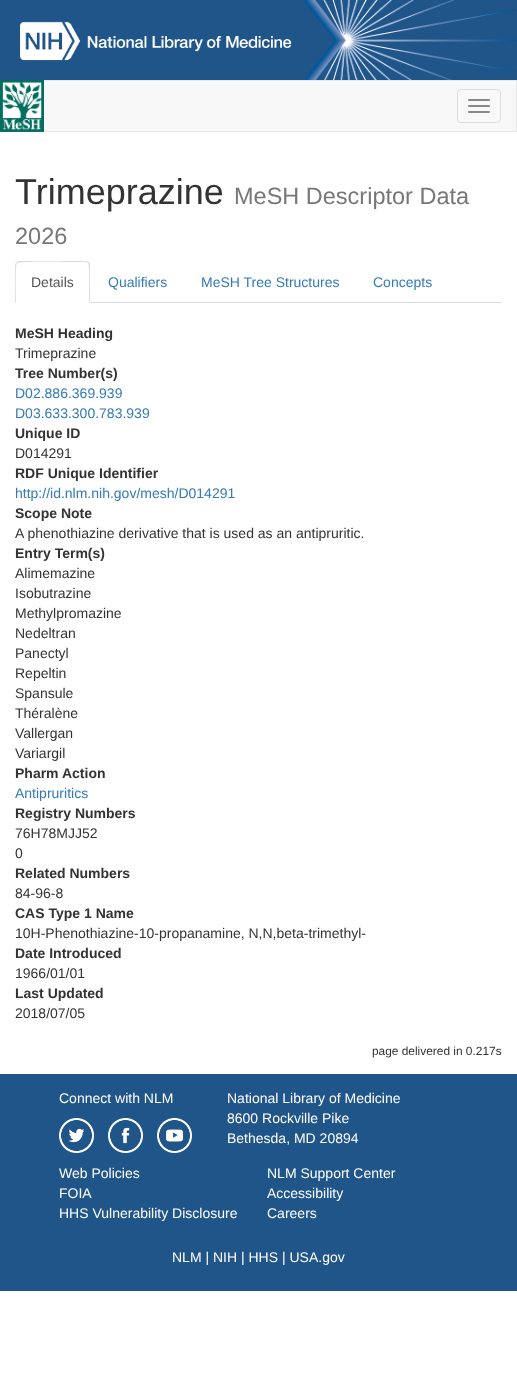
<!DOCTYPE html>
<meta charset="utf-8">
<style>body { margin: 0 } canvas { display: block }</style>
<canvas id="canvas" width="517" height="1373"></canvas>
<script type="module">
  const canvas = document.getElementById("canvas");
  const g = canvas.getContext("2d");
  g.miterLimit = 4;
  g.fontKerning = "normal";
  function drawText(s, x, y, [font, color]) {
    g.font = font;
    g.fillStyle = color;
    g.fillText(s, x, y);
  }
  function fillBox(x, y, w, h, color) {
    g.fillStyle = color;
    g.fillRect(x, y, w, h);
  }
  function fillRounded(x, y, w, h, r, color) {
    g.fillStyle = color;
    g.beginPath();
    g.roundRect(x, y, w, h, r);
    g.fill();
  }
  async function drawPicture(src, x, y, w, h) {
    const img = new Image();
    img.src = src;
    await img.decode();
    g.drawImage(img, x, y, w, h);
  }

  const s1 = ["36px Liberation Sans", "#333333"];
  const s2 = ["23.5px Liberation Sans", "#777777"];
  const s3 = ["14px Liberation Sans", "#555555"];
  const s4 = ["14px Liberation Sans", "#337AB7"];
  const s5 = ["bold 14px Liberation Sans", "#333333"];
  const s6 = ["14px Liberation Sans", "#333333"];
  const s7 = ["11.9px Liberation Sans", "#333333"];
  const s8 = ["14px Liberation Sans", "#FFFFFF"];

  fillBox(0, 0, 517, 1373, "#FFFFFF");
  fillBox(0, 0, 517, 80, "#20558A");
  await drawPicture("pic1.png", 303, 0, 214, 80);
  await drawPicture("pic2.png", 20, 21, 272, 40);
  fillBox(44, 81, 472, 50, "#F8F8F8");
  g.strokeStyle = "#E7E7E7";
  g.strokeRect(0.5, 80.5, 516, 51);
  await drawPicture("pic3.png", 0, 80, 44, 52);
  g.beginPath();
  g.roundRect(457.5, 89.5, 43, 33, 3.5);
  g.strokeStyle = "#DDDDDD";
  g.stroke();
  fillRounded(468, 99, 22, 2, 1, "#888888");
  fillRounded(468, 105, 22, 2, 1, "#888888");
  fillRounded(468, 111, 22, 2, 1, "#888888");
  drawText("Trimeprazine", 15, 204, s1);
  drawText("MeSH Descriptor Data", 234, 204, s2);
  drawText("2026", 15, 244, s2);
  fillBox(90, 302, 412, 1, "#DDDDDD");
  g.beginPath();
  g.moveTo(19, 261);
  g.lineTo(16, 262);
  g.lineTo(17, 263);
  g.bezierCurveTo(19, 261, 68, 262, 75, 262);
  g.lineTo(86, 262);
  g.lineTo(88, 263);
  g.lineTo(89, 262);
  g.lineTo(86, 261);
  g.closePath();
  g.fill();
  g.beginPath();
  g.moveTo(90, 303);
  g.lineTo(90, 265);
  g.bezierCurveTo(90, 264, 90, 263, 89, 262);
  g.lineTo(88, 263);
  g.bezierCurveTo(90, 265, 89, 297, 89, 302);
  g.closePath();
  g.fill();
  g.beginPath();
  g.moveTo(15, 303);
  g.lineTo(16, 302);
  g.bezierCurveTo(16, 297, 15, 265, 17, 263);
  g.lineTo(16, 262);
  g.lineTo(15, 265);
  g.closePath();
  g.fill();
  drawText("Details", 31, 287, s3);
  drawText("Qualifiers", 108, 287, s4);
  drawText("MeSH Tree Structures", 201, 287, s4);
  drawText("Concepts", 373, 287, s4);
  drawText("MeSH Heading", 15, 338, s5);
  drawText("Trimeprazine", 15, 358, s6);
  drawText("Tree Number(s)", 15, 378, s5);
  drawText("D02.886.369.939", 15, 398, s4);
  drawText("D03.633.300.783.939", 15, 418, s4);
  drawText("Unique ID", 15, 438, s5);
  drawText("D014291", 15, 458, s6);
  drawText("RDF Unique Identifier", 15, 478, s5);
  drawText("http://id.nlm.nih.gov/mesh/D014291", 15, 498, s4);
  drawText("Scope Note", 15, 518, s5);
  drawText("A phenothiazine derivative that is used as an antipruritic.", 15, 538, s6);
  drawText("Entry Term(s)", 15, 558, s5);
  drawText("Alimemazine", 15, 578, s6);
  drawText("Isobutrazine", 15, 598, s6);
  drawText("Methylpromazine", 15, 618, s6);
  drawText("Nedeltran", 15, 638, s6);
  drawText("Panectyl", 15, 658, s6);
  drawText("Repeltin", 15, 678, s6);
  drawText("Spansule", 15, 698, s6);
  drawText("Théralène", 15, 718, s6);
  drawText("Vallergan", 15, 738, s6);
  drawText("Variargil", 15, 758, s6);
  drawText("Pharm Action", 15, 778, s5);
  drawText("Antipruritics", 15, 798, s4);
  drawText("Registry Numbers", 15, 818, s5);
  drawText("76H78MJJ52", 15, 838, s6);
  drawText("0", 15, 858, s6);
  drawText("Related Numbers", 15, 878, s5);
  drawText("84-96-8", 15, 898, s6);
  drawText("CAS Type 1 Name", 15, 918, s5);
  drawText("10H-Phenothiazine-10-propanamine, N,N,beta-trimethyl-", 15, 938, s6);
  drawText("Date Introduced", 15, 958, s5);
  drawText("1966/01/01", 15, 978, s6);
  drawText("Last Updated", 15, 998, s5);
  drawText("2018/07/05", 15, 1018, s6);
  drawText("page delivered in 0.217s", 372, 1055, s7);
  fillBox(0, 1074, 517, 217, "#20558A");
  drawText("Connect with NLM", 59, 1103, s8);
  await drawPicture("pic4.png", 59, 1118, 35, 35);
  await drawPicture("pic5.png", 108, 1118, 35, 35);
  await drawPicture("pic6.png", 157, 1118, 35, 35);
  drawText("National Library of Medicine", 227, 1103, s8);
  drawText("8600 Rockville Pike", 227, 1123, s8);
  drawText("Bethesda, MD 20894", 227, 1143, s8);
  drawText("Web Policies", 59, 1178, s8);
  drawText("FOIA", 59, 1198, s8);
  drawText("HHS Vulnerability Disclosure", 59, 1218, s8);
  drawText("NLM Support Center", 267, 1178, s8);
  drawText("Accessibility", 267, 1198, s8);
  drawText("Careers", 267, 1218, s8);
  drawText("NLM | NIH | HHS | USA.gov", 172, 1262, s8);
</script>
